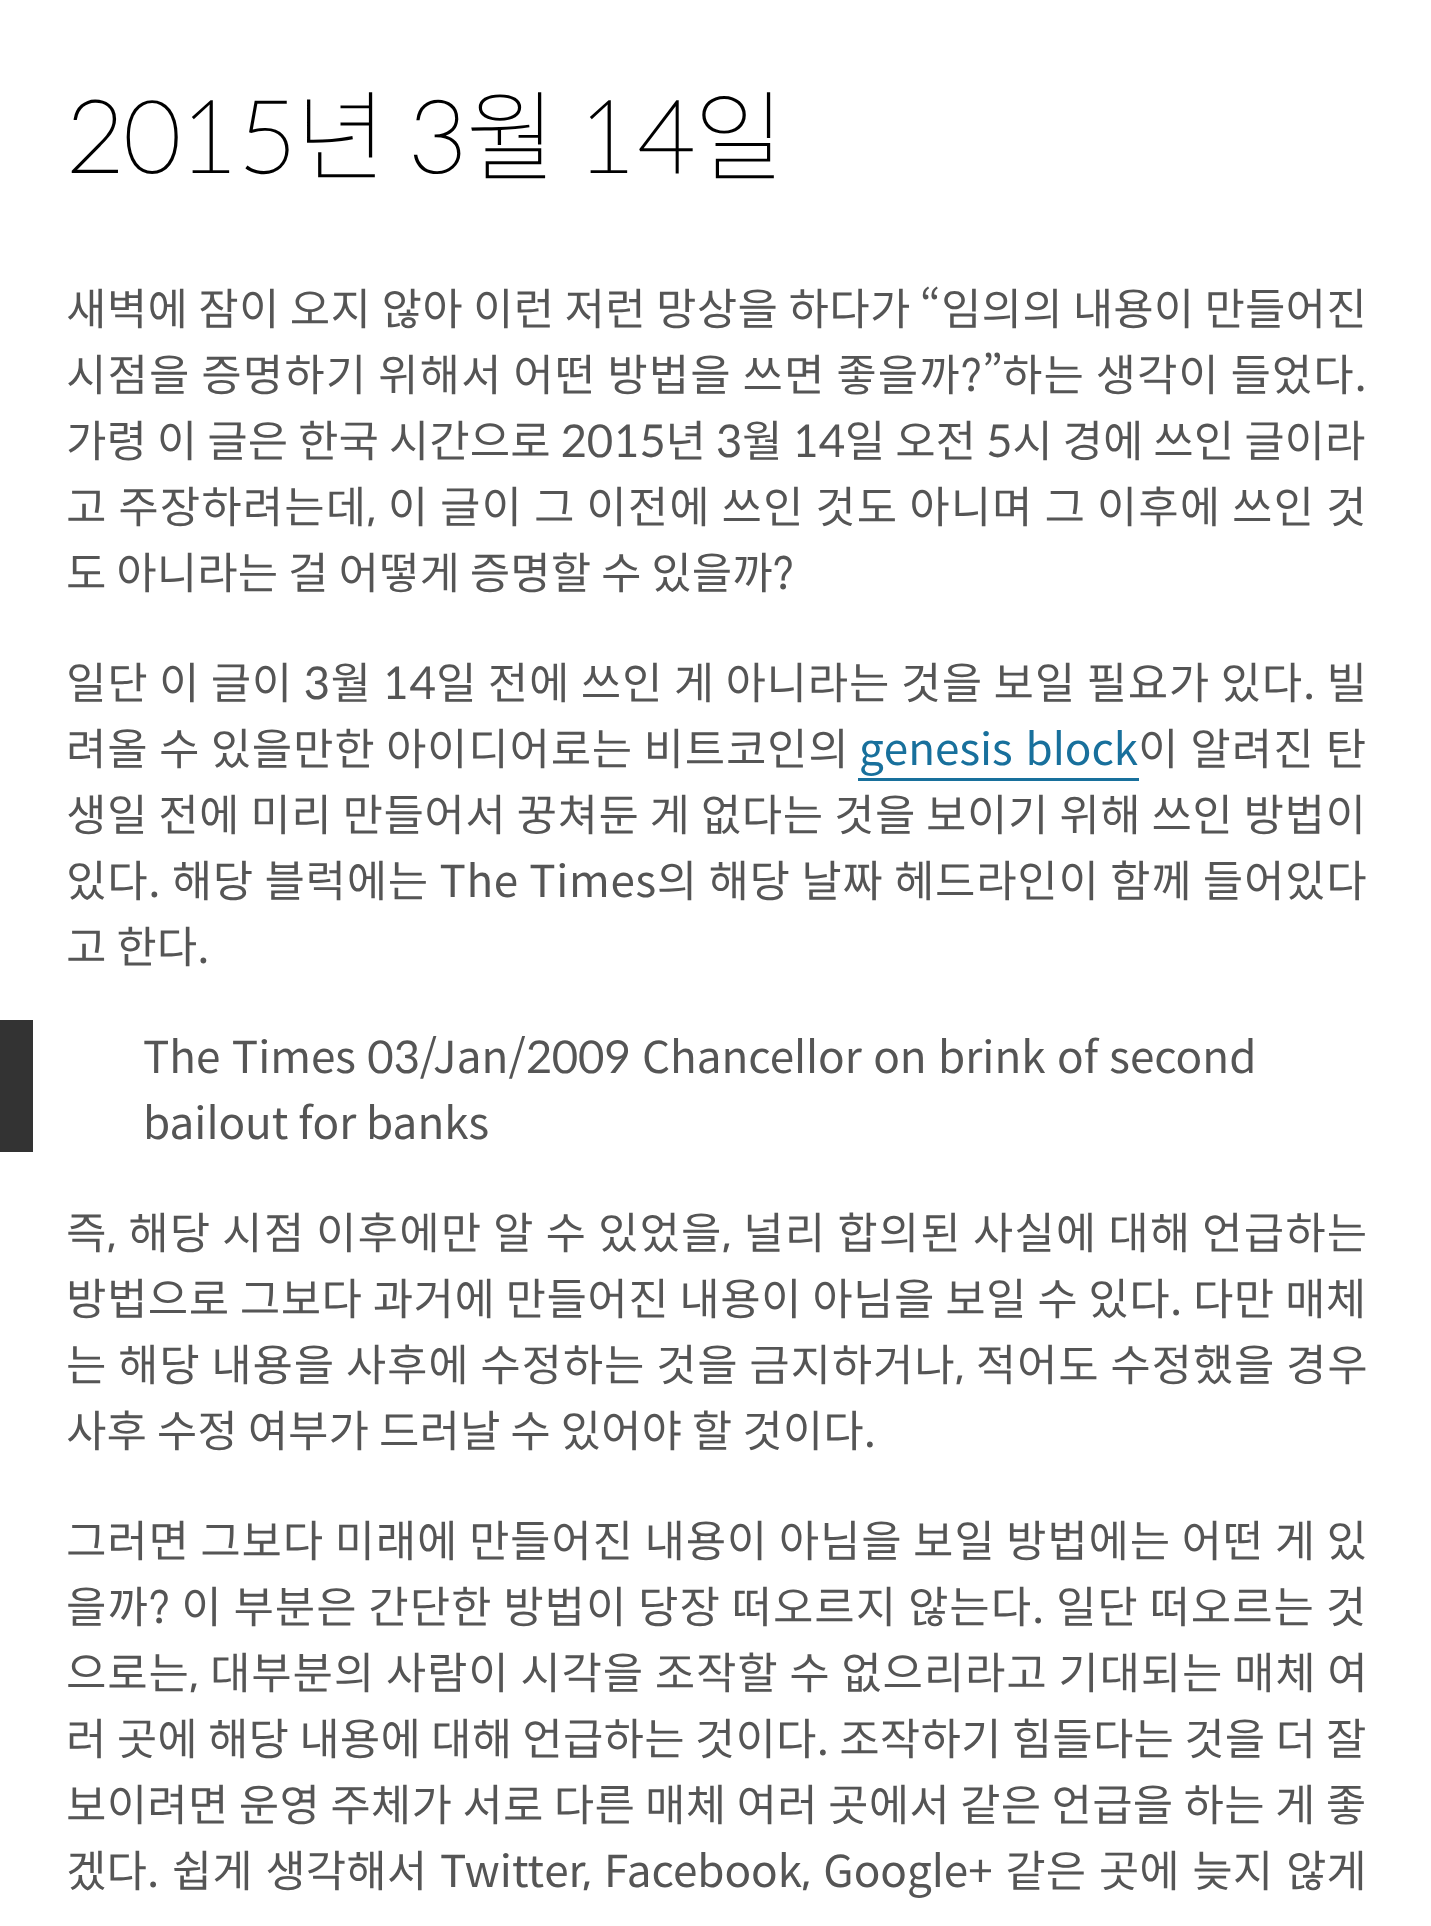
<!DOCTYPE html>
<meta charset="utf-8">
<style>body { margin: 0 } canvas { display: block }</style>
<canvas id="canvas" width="1431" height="1926"></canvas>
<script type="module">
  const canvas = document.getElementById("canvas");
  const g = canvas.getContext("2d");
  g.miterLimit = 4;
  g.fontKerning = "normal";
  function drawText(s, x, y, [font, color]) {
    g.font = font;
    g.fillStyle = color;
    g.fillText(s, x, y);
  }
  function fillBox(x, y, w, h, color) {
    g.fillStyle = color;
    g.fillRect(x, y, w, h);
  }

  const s1 = ["100 99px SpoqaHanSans", "#000000"];
  const s2 = ["44px SpoqaHanSans", "#555555"];
  const s3 = ["44px SpoqaHanSans", "#18709C"];

  fillBox(0, 0, 1431, 1926, "#FFFFFF");
  drawText("2015년 3월 14일", 66, 173, s1);
  g.letterSpacing = "0.25px";
  drawText("새벽에 잠이 오지 않아 이런 저런 망상을 하다가", 66, 325, s2);
  g.letterSpacing = "0px";
  drawText("“", 920, 325, s2);
  g.letterSpacing = "0.1px";
  drawText("임의의 내용이 만들어진", 941, 325, s2);
  g.letterSpacing = "1px";
  drawText("시점을 증명하기 위해서 어떤 방법을 쓰면 좋을까?", 66, 391, s2);
  g.letterSpacing = "0px";
  drawText("”", 982, 391, s2);
  g.letterSpacing = "0.9px";
  drawText("하는 생각이 들었다.", 1002, 391, s2);
  g.letterSpacing = "0px";
  drawText("가령 이 글은 한국 시간으로 2015년 3월 14일 오전 5시 경에 쓰인 글이라", 66, 457, s2);
  g.letterSpacing = "1px";
  drawText("고 주장하려는데, 이 글이 그 이전에 쓰인 것도 아니며 그 이후에 쓰인 것", 66, 523, s2);
  g.letterSpacing = "0px";
  drawText("도 아니라는 걸 어떻게 증명할 수 있을까?", 66, 589, s2);
  g.letterSpacing = "0.7px";
  drawText("일단 이 글이 3월 14일 전에 쓰인 게 아니라는 것을 보일 필요가 있다. 빌", 66, 699, s2);
  drawText("려올 수 있을만한 아이디어로는 비트코인의", 66, 765, s2);
  g.letterSpacing = "0px";
  g.wordSpacing = "3px";
  drawText("genesis block", 859, 765, s3);
  fillBox(858, 778, 281, 3, "#18709C");
  g.letterSpacing = "1px";
  g.wordSpacing = "0px";
  drawText("이 알려진 탄", 1138, 765, s2);
  g.letterSpacing = "0.45px";
  drawText("생일 전에 미리 만들어서 꿍쳐둔 게 없다는 것을 보이기 위해 쓰인 방법이", 66, 831, s2);
  g.letterSpacing = "0.65px";
  drawText("있다. 해당 블럭에는 The Times의 해당 날짜 헤드라인이 함께 들어있다", 66, 897, s2);
  g.letterSpacing = "0px";
  drawText("고 한다.", 66, 963, s2);
  fillBox(0, 1020, 33, 132, "#333333");
  g.wordSpacing = "1.5px";
  drawText("The Times 03/Jan/2009 Chancellor on brink of second", 143, 1073, s2);
  g.wordSpacing = "0px";
  drawText("bailout for banks", 143, 1139, s2);
  g.letterSpacing = "1.05px";
  drawText("즉, 해당 시점 이후에만 알 수 있었을, 널리 합의된 사실에 대해 언급하는", 66, 1249, s2);
  g.letterSpacing = "0.4px";
  drawText("방법으로 그보다 과거에 만들어진 내용이 아님을 보일 수 있다. 다만 매체", 66, 1315, s2);
  g.letterSpacing = "0.8px";
  drawText("는 해당 내용을 사후에 수정하는 것을 금지하거나, 적어도 수정했을 경우", 66, 1381, s2);
  g.letterSpacing = "0px";
  drawText("사후 수정 여부가 드러날 수 있어야 할 것이다.", 66, 1447, s2);
  g.letterSpacing = "0.75px";
  drawText("그러면 그보다 미래에 만들어진 내용이 아님을 보일 방법에는 어떤 게 있", 66, 1557, s2);
  g.letterSpacing = "0.9px";
  drawText("을까? 이 부분은 간단한 방법이 당장 떠오르지 않는다. 일단 떠오르는 것", 66, 1623, s2);
  g.letterSpacing = "0.8px";
  drawText("으로는, 대부분의 사람이 시각을 조작할 수 없으리라고 기대되는 매체 여", 66, 1689, s2);
  g.letterSpacing = "0.15px";
  drawText("러 곳에 해당 내용에 대해 언급하는 것이다. 조작하기 힘들다는 것을 더 잘", 66, 1755, s2);
  g.letterSpacing = "0.2px";
  drawText("보이려면 운영 주체가 서로 다른 매체 여러 곳에서 같은 언급을 하는 게 좋", 66, 1821, s2);
  g.letterSpacing = "0px";
  g.wordSpacing = "2.75px";
  drawText("겠다. 쉽게 생각해서 Twitter, Facebook, Google+ 같은 곳에 늦지 않게", 66, 1887, s2);
</script>
